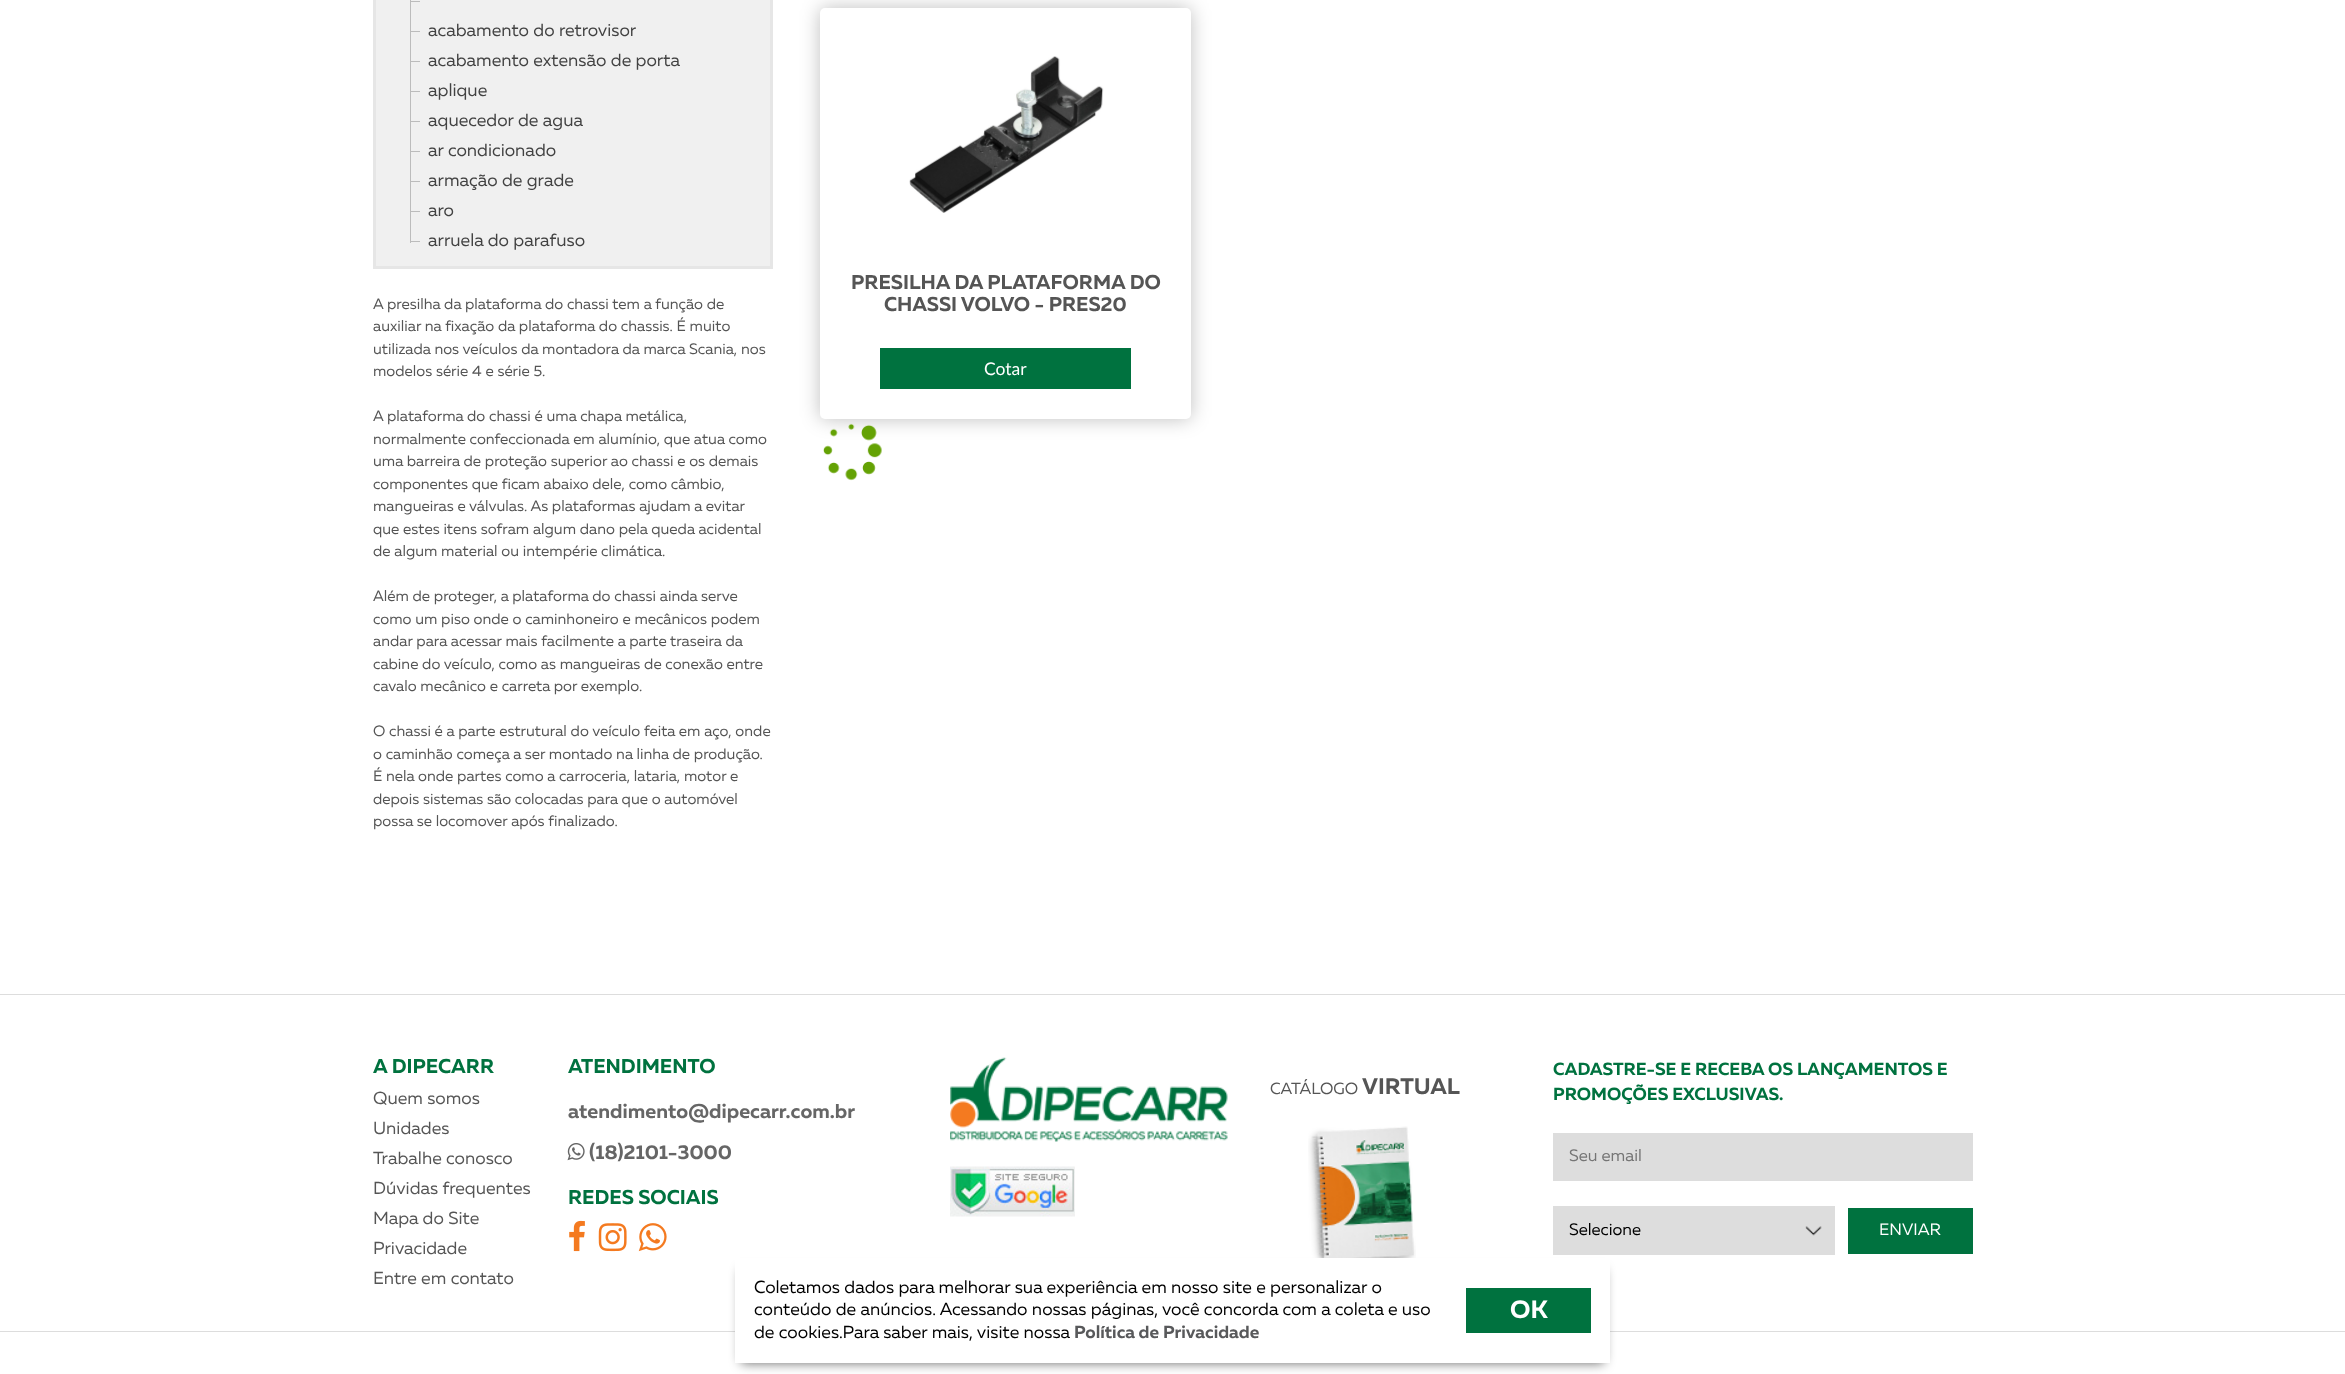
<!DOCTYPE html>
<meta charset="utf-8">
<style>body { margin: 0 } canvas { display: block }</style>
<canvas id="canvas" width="2345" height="1374"></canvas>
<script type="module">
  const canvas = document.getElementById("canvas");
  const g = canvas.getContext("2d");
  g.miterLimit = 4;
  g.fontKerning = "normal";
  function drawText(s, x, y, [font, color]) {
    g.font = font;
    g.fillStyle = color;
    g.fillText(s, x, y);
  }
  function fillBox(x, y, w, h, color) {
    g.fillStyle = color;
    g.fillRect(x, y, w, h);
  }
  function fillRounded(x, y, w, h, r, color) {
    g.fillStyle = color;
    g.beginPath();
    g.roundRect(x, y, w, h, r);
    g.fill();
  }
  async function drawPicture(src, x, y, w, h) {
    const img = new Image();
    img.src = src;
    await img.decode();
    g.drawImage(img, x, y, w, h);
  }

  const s1 = ["17.5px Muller", "#424242"];
  const s2 = ["15px Muller", "#555555"];
  const s3 = ["bold 20px Muller", "#555555"];
  const s4 = ["17.5px Lato", "#FFFFFF"];
  const s5 = ["bold 20px Muller", "#00723F"];
  const s6 = ["17.5px Muller", "#555555"];
  const s7 = ["bold 20px Muller", "#666666"];
  const s8 = ["16.25px Muller", "#555555"];
  const s9 = ["bold 22.5px Muller", "#555555"];
  const s10 = ["bold 17.5px Muller", "#00723F"];
  const s11 = ["16.5px Muller", "#757575"];
  const s12 = ["16.5px Muller", "#000000"];
  const s13 = ["16.5px Muller", "#FFFFFF"];
  const s14 = ["17.5px Muller", "#000000"];
  const s15 = ["bold 17.5px Muller", "#58595B"];
  const s16 = ["bold 25px Muller", "#FFFFFF"];

  fillBox(0, 0, 2345, 1374, "#FFFFFF");
  fillBox(376, 0, 394, 266, "#F0F0F0");
  fillBox(770, 0, 3, 269, "#E6E6E6");
  fillBox(373, 266, 400, 3, "#E6E6E6");
  fillBox(373, 0, 3, 269, "#E6E6E6");
  fillBox(410, 1, 10, 1, "#BCBCBC");
  fillBox(410, 31, 10, 1, "#BCBCBC");
  fillBox(410, 61, 10, 1, "#BCBCBC");
  fillBox(410, 91, 10, 1, "#BCBCBC");
  fillBox(410, 121, 10, 1, "#BCBCBC");
  fillBox(410, 151, 10, 1, "#BCBCBC");
  fillBox(410, 181, 10, 1, "#BCBCBC");
  fillBox(410, 211, 10, 1, "#BCBCBC");
  fillBox(410, 241, 10, 1, "#BCBCBC");
  fillBox(410, 0, 1, 243, "#BCBCBC");
  drawText("acabamento do retrovisor", 428, 36, s1);
  drawText("acabamento extensão de porta", 428, 66, s1);
  drawText("aplique", 428, 96, s1);
  drawText("aquecedor de agua", 428, 126, s1);
  drawText("ar condicionado", 428, 156, s1);
  drawText("armação de grade", 428, 186, s1);
  drawText("aro", 428, 216, s1);
  drawText("arruela do parafuso", 428, 246, s1);
  drawText("A presilha da plataforma do chassi tem a função de", 373, 309, s2);
  drawText("auxiliar na fixação da plataforma do chassis. É muito", 373, 331, s2);
  drawText("utilizada nos veículos da montadora da marca Scania, nos", 373, 354, s2);
  drawText("modelos série 4 e série 5.", 373, 376, s2);
  drawText("A plataforma do chassi é uma chapa metálica,", 373, 421, s2);
  drawText("normalmente confeccionada em alumínio, que atua como", 373, 444, s2);
  drawText("uma barreira de proteção superior ao chassi e os demais", 373, 466, s2);
  drawText("componentes que ficam abaixo dele, como câmbio,", 373, 489, s2);
  drawText("mangueiras e válvulas. As plataformas ajudam a evitar", 373, 511, s2);
  drawText("que estes itens sofram algum dano pela queda acidental", 373, 534, s2);
  drawText("de algum material ou intempérie climática.", 373, 556, s2);
  drawText("Além de proteger, a plataforma do chassi ainda serve", 373, 601, s2);
  drawText("como um piso onde o caminhoneiro e mecânicos podem", 373, 624, s2);
  drawText("andar para acessar mais facilmente a parte traseira da", 373, 646, s2);
  drawText("cabine do veículo, como as mangueiras de conexão entre", 373, 669, s2);
  drawText("cavalo mecânico e carreta por exemplo.", 373, 691, s2);
  drawText("O chassi é a parte estrutural do veículo feita em aço, onde", 373, 736, s2);
  drawText("o caminhão começa a ser montado na linha de produção.", 373, 759, s2);
  drawText("É nela onde partes como a carroceria, lataria, motor e", 373, 781, s2);
  drawText("depois sistemas são colocadas para que o automóvel", 373, 804, s2);
  drawText("possa se locomover após finalizado.", 373, 826, s2);
  g.fillStyle = "rgba(0, 0, 0, 0.25)";
  g.filter = "blur(9.5px)";
  g.beginPath();
  g.roundRect(820, 8, 371, 411, 5);
  g.fill();
  g.filter = "none";
  fillRounded(820, 8, 371, 411, 5, "#FFFFFF");
  await drawPicture("pic1.png", 909, 56, 195, 157);
  drawText("PRESILHA DA PLATAFORMA DO", 851, 289, s3);
  drawText("CHASSI VOLVO - PRES20", 884, 311, s3);
  fillBox(880, 348, 251, 41, "#00723F");
  drawText("Cotar", 984, 375, s4);
  await drawPicture("pic2.png", 823, 423, 59, 58);
  fillBox(0, 994, 2345, 1, "#DDDDDD");
  fillBox(0, 1331, 2345, 1, "#DDDDDD");
  drawText("A DIPECARR", 373, 1073, s5);
  drawText("Quem somos", 373, 1104, s6);
  drawText("Unidades", 373, 1134, s6);
  drawText("Trabalhe conosco", 373, 1164, s6);
  drawText("Dúvidas frequentes", 373, 1194, s6);
  drawText("Mapa do Site", 373, 1224, s6);
  drawText("Privacidade", 373, 1254, s6);
  drawText("Entre em contato", 373, 1284, s6);
  drawText("ATENDIMENTO", 568, 1073, s5);
  drawText("atendimento@dipecarr.com.br", 568, 1118, s7);
  await drawPicture("pic3.png", 567, 1143, 18, 18);
  drawText("(18)2101-3000", 589, 1159, s7);
  drawText("REDES SOCIAIS", 568, 1204, s5);
  await drawPicture("pic4.png", 569, 1220, 16, 32);
  await drawPicture("pic5.png", 598, 1223, 29, 29);
  await drawPicture("pic6.png", 638, 1223, 29, 29);
  await drawPicture("pic7.png", 950, 1057, 278, 85);
  await drawPicture("pic8.png", 950, 1166, 125, 51);
  drawText("CATÁLOGO", 1270, 1094, s8);
  drawText("VIRTUAL", 1362, 1094, s9);
  await drawPicture("pic9.png", 1308, 1126, 108, 132);
  drawText("CADASTRE-SE E RECEBA OS LANÇAMENTOS E", 1553, 1075, s10);
  drawText("PROMOÇÕES EXCLUSIVAS.", 1553, 1100, s10);
  fillBox(1553, 1133, 420, 48, "#DDDDDD");
  drawText("Seu email", 1569, 1161, s11);
  fillBox(1553, 1206, 282, 49, "#DDDDDD");
  await drawPicture("pic10.png", 1805, 1226, 17, 10);
  drawText("Selecione", 1569, 1235, s12);
  fillBox(1848, 1208, 125, 46, "#00723F");
  drawText("ENVIAR", 1879, 1235, s13);
  g.fillStyle = "rgba(0, 0, 0, 0.6)";
  g.filter = "blur(6px)";
  g.beginPath();
  g.rect(741, 1270, 863, 93);
  g.fill();
  g.filter = "none";
  fillBox(735, 1258, 875, 105, "#FFFFFF");
  drawText("Coletamos dados para melhorar sua experiência em nosso site e personalizar o", 754, 1293, s14);
  drawText("conteúdo de anúncios. Acessando nossas páginas, você concorda com a coleta e uso", 754, 1315, s14);
  drawText("de cookies.Para saber mais, visite nossa", 754, 1338, s14);
  drawText("Política de Privacidade", 1074, 1338, s15);
  fillBox(1466, 1288, 125, 45, "#00723F");
  drawText("OK", 1510, 1318, s16);
</script>
